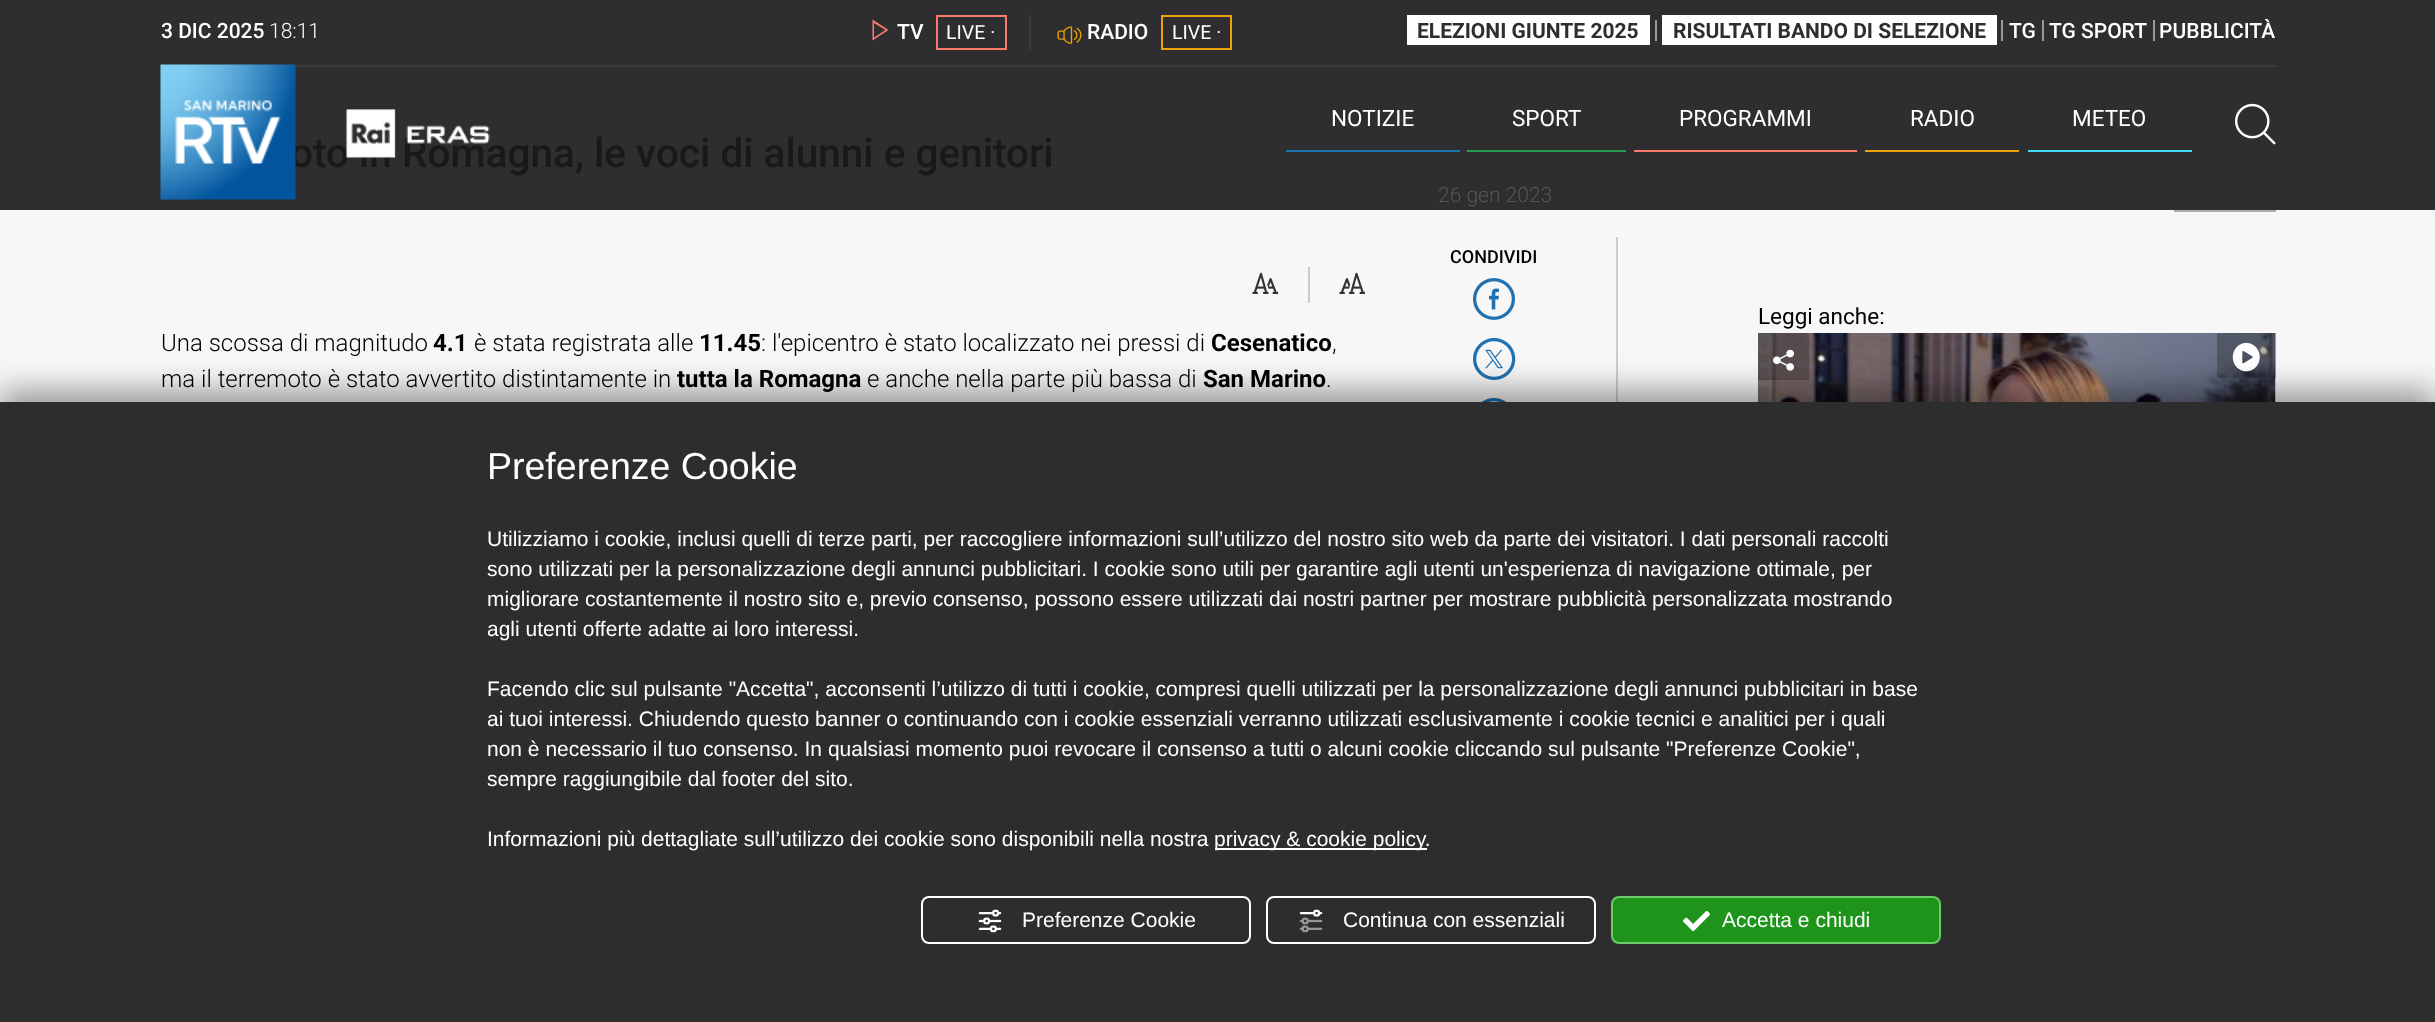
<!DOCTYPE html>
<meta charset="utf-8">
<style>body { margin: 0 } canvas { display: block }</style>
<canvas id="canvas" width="2435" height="1022"></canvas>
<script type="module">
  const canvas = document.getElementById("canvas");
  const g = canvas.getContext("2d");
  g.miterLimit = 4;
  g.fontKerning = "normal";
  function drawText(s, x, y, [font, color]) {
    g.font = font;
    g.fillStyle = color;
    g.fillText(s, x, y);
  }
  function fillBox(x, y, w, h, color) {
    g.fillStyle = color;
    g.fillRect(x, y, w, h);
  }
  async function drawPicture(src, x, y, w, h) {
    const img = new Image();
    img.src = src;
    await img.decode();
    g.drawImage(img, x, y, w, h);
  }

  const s1 = ["500 21px Roboto", "#FFFFFF"];
  const s2 = ["300 21px Roboto", "#FFFFFF"];
  const s3 = ["19.5px Roboto", "#FFFFFF"];
  const s4 = ["bold 21px Roboto", "#2E2E30"];
  const s5 = ["500 40.5px Roboto", "#191919"];
  const s6 = ["22.5px Roboto", "#FFFFFF"];
  const s7 = ["300 21px Roboto", "#555555"];
  const s8 = ["500 18px Roboto", "#000000"];
  const s9 = ["300 24px Roboto", "#000000"];
  const s10 = ["bold 24px Roboto", "#000000"];
  const s11 = ["22.5px Roboto", "#000000"];
  const s12 = ["37.5px Liberation Sans", "#FFFFFF"];
  const s13 = ["21px Liberation Sans", "#FFFFFF"];

  fillBox(0, 0, 2435, 1022, "#F7F7F7");
  fillBox(0, 0, 2435, 210, "#2E2E30");
  fillBox(295, 65, 1981, 2, "#3A3A3A");
  drawText("3 DIC 2025", 161, 38, s1);
  drawText("18:11", 269, 38, s2);
  fillBox(1029, 15, 2, 35, "#3A3A3A");
  g.fillStyle = "#FF786D";
  g.beginPath();
  g.moveTo(874, 23);
  g.lineTo(885.5, 30);
  g.lineTo(874, 37.5);
  g.closePath();
  g.moveTo(872.5, 19.5);
  g.lineTo(872.5, 40.5);
  g.lineTo(888.5, 30);
  g.closePath();
  g.fill();
  drawText("TV", 897, 39, s1);
  g.strokeStyle = "#FF786D";
  g.lineWidth = 2;
  g.strokeRect(937, 16, 69, 33);
  drawText("LIVE ·", 946, 39, s3);
  await drawPicture("pic1.png", 1057, 26, 25, 18);
  drawText("RADIO", 1087, 39, s1);
  g.strokeStyle = "#F0A202";
  g.strokeRect(1162, 16, 69, 33);
  drawText("LIVE ·", 1172, 39, s3);
  fillBox(1407, 15, 243, 30, "#FFFFFF");
  drawText("ELEZIONI GIUNTE 2025", 1417, 38, s4);
  fillBox(1655, 20, 2, 21, "#999999");
  fillBox(1662, 15, 335, 30, "#FFFFFF");
  drawText("RISULTATI BANDO DI SELEZIONE", 1673, 38, s4);
  fillBox(2001, 20, 2, 21, "#999999");
  drawText("TG", 2009, 38, s1);
  fillBox(2042, 20, 2, 21, "#999999");
  drawText("TG SPORT", 2049, 38, s1);
  fillBox(2153, 20, 2, 21, "#999999");
  drawText("PUBBLICITÀ", 2159, 38, s1);
  drawText("oto in Romagna, le voci di alunni e genitori", 290, 167, s5);
  await drawPicture("pic2.png", 160, 64, 136, 136);
  await drawPicture("pic3.png", 346, 109, 144, 49);
  fillBox(1286, 150, 174, 2, "#2071AF");
  drawText("NOTIZIE", 1331, 126, s6);
  fillBox(1467, 150, 159, 2, "#269E51");
  drawText("SPORT", 1512, 126, s6);
  fillBox(1634, 150, 223, 2, "#FF786D");
  drawText("PROGRAMMI", 1679, 126, s6);
  fillBox(1865, 150, 154, 2, "#F0A202");
  drawText("RADIO", 1910, 126, s6);
  fillBox(2028, 150, 164, 2, "#3DDDFA");
  drawText("METEO", 2072, 126, s6);
  await drawPicture("pic4.png", 2235, 103, 41, 42);
  drawText("26 gen 2023", 1438, 202, s7);
  fillBox(1616, 237, 2, 165, "#CCCCCC");
  drawText("CONDIVIDI", 1450, 263, s8);
  await drawPicture("pic5.png", 1473, 278, 42, 42);
  await drawPicture("pic6.png", 1473, 338, 43, 42);
  await drawPicture("pic7.png", 1481, 398, 26, 4);
  await drawPicture("pic8.png", 1252, 272, 26, 22);
  fillBox(1308, 267, 2, 36, "#CCCCCC");
  await drawPicture("pic9.png", 1339, 272, 26, 22);
  drawText("Una scossa di magnitudo", 161, 351, s9);
  drawText("4.1", 433, 351, s10);
  drawText("è stata registrata alle", 474, 351, s9);
  drawText("11.45", 699, 351, s10);
  drawText(": l'epicentro è stato localizzato nei pressi di", 761, 351, s9);
  drawText("Cesenatico", 1211, 351, s10);
  drawText(",", 1332, 351, s9);
  drawText("ma il terremoto è stato avvertito distintamente in", 161, 387, s9);
  drawText("tutta la Romagna", 677, 387, s10);
  drawText("e anche nella parte più bassa di", 867, 387, s9);
  drawText("San Marino", 1203, 387, s10);
  drawText(".", 1326, 387, s9);
  drawText("Leggi anche:", 1758, 324, s11);
  await drawPicture("pic10.png", 1758, 333, 518, 69);
  fillBox(1758, 333, 51, 47, "rgba(26, 26, 26, 0.3)");
  await drawPicture("pic11.png", 1773, 349, 21, 22);
  fillBox(2217, 333, 59, 45, "rgba(26, 26, 26, 0.3)");
  await drawPicture("pic12.png", 2232, 342, 28, 30);
  fillBox(2174, 210, 102, 2, "#ADADAD");
  g.fillStyle = "rgba(0, 0, 0, 0.38)";
  g.filter = "blur(15px)";
  g.beginPath();
  g.rect(0, 390, 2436, 621);
  g.fill();
  g.filter = "none";
  fillBox(0, 402, 2435, 620, "#2D2D2D");
  drawText("Preferenze Cookie", 487, 479, s12);
  drawText("Utilizziamo i cookie, inclusi quelli di terze parti, per raccogliere informazioni sull’utilizzo del nostro sito web da parte dei visitatori. I dati personali raccolti", 487, 546, s13);
  drawText("sono utilizzati per la personalizzazione degli annunci pubblicitari. I cookie sono utili per garantire agli utenti un'esperienza di navigazione ottimale, per", 487, 576, s13);
  drawText("migliorare costantemente il nostro sito e, previo consenso, possono essere utilizzati dai nostri partner per mostrare pubblicità personalizzata mostrando", 487, 606, s13);
  drawText("agli utenti offerte adatte ai loro interessi.", 487, 636, s13);
  drawText("Facendo clic sul pulsante \"Accetta\", acconsenti l’utilizzo di tutti i cookie, compresi quelli utilizzati per la personalizzazione degli annunci pubblicitari in base", 487, 696, s13);
  drawText("ai tuoi interessi. Chiudendo questo banner o continuando con i cookie essenziali verranno utilizzati esclusivamente i cookie tecnici e analitici per i quali", 487, 726, s13);
  drawText("non è necessario il tuo consenso. In qualsiasi momento puoi revocare il consenso a tutti o alcuni cookie cliccando sul pulsante \"Preferenze Cookie\",", 487, 756, s13);
  drawText("sempre raggiungibile dal footer del sito.", 487, 786, s13);
  drawText("Informazioni più dettagliate sull’utilizzo dei cookie sono disponibili nella nostra", 487, 846, s13);
  fillBox(1215, 848, 212, 2, "#FFFFFF");
  drawText("privacy & cookie policy.", 1214, 846, s13);
  g.beginPath();
  g.roundRect(922, 897, 328, 46, 7);
  g.strokeStyle = "#FFFFFF";
  g.stroke();
  await drawPicture("pic13.png", 978, 909, 24, 24);
  drawText("Preferenze Cookie", 1022, 927, s13);
  g.beginPath();
  g.roundRect(1267, 897, 328, 46, 7);
  g.stroke();
  await drawPicture("pic14.png", 1299, 909, 24, 24);
  drawText("Continua con essenziali", 1343, 927, s13);
  g.fillStyle = "#1E941A";
  g.beginPath();
  g.roundRect(1612, 897, 328, 46, 7);
  g.fill();
  g.strokeStyle = "#6CCA69";
  g.stroke();
  await drawPicture("pic15.png", 1683, 910, 27, 21);
  drawText("Accetta e chiudi", 1722, 927, s13);
</script>
